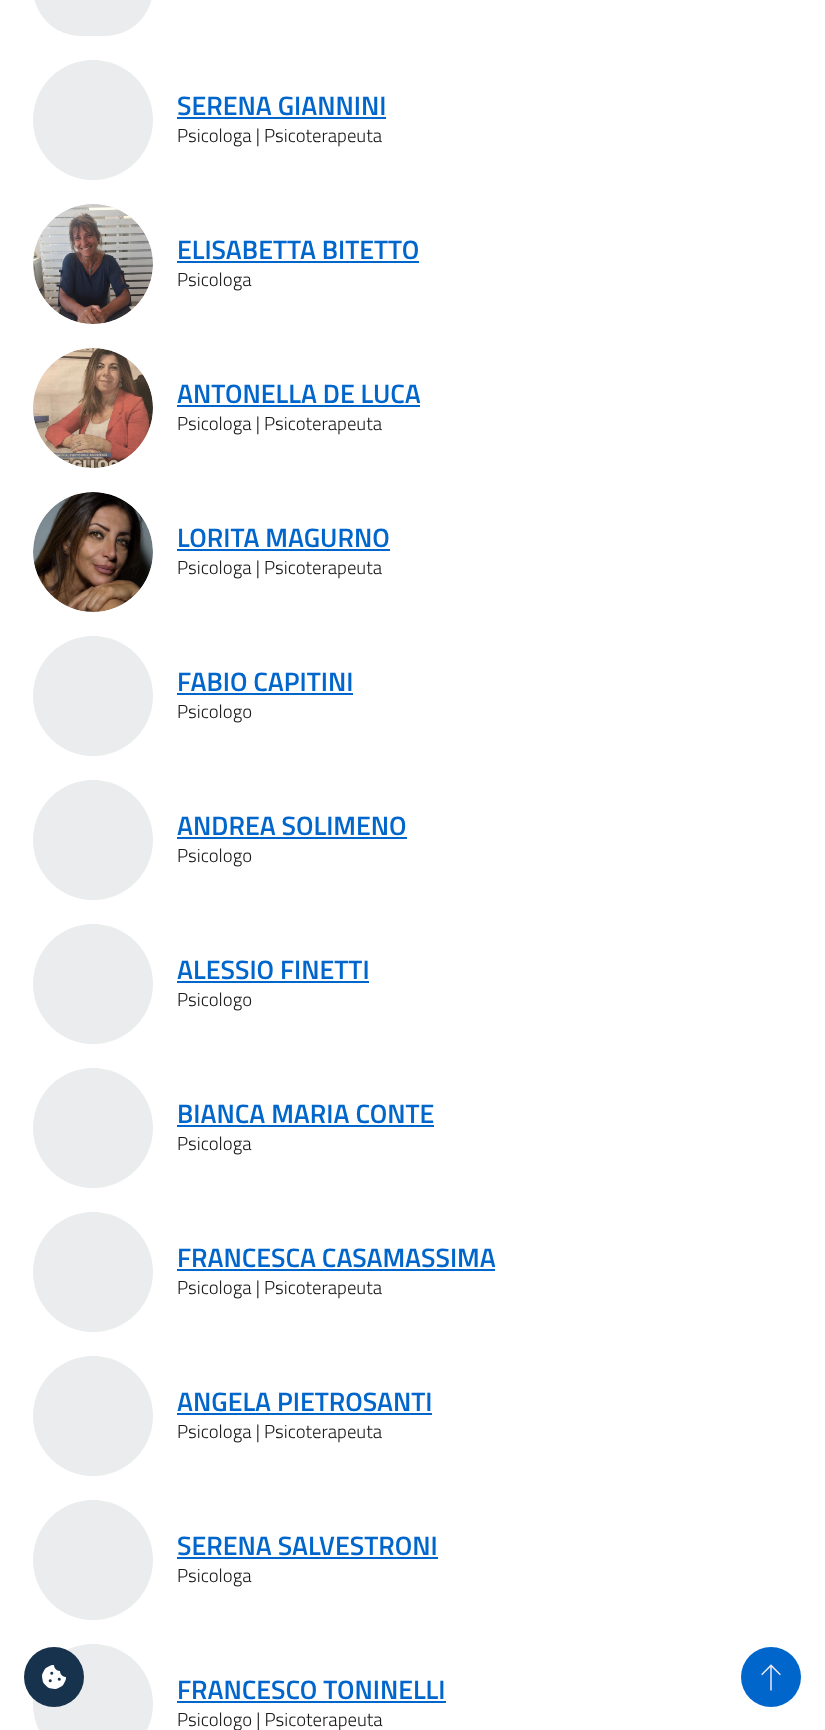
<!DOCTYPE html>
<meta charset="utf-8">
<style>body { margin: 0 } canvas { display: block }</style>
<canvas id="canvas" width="825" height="1730"></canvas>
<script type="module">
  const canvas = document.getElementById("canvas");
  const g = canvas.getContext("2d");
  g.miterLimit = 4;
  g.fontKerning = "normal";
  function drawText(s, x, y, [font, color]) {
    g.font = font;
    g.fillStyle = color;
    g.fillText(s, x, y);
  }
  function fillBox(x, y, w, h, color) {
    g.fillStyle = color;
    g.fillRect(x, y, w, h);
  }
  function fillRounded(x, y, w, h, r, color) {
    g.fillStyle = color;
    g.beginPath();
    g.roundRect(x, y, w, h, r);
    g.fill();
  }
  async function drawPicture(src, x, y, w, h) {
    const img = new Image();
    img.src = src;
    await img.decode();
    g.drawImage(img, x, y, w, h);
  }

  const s1 = ["600 26.7px Titillium Web", "#0066CC"];
  const s2 = ["300 18.75px Titillium Web", "#19191A"];

  fillBox(0, 0, 825, 1730, "#FFFFFF");
  g.fillStyle = "#EBECED";
  g.beginPath();
  g.arc(93, 1704, 60, 0, Math.PI * 2);
  g.fill();
  g.fillStyle = "#17324D";
  g.beginPath();
  g.arc(54, 1677, 30, 0, Math.PI * 2);
  g.fill();
  await drawPicture("pic1.png", 42, 1665, 24, 24);
  fillRounded(33, -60, 120, 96, 60, "#EBECED");
  g.beginPath();
  g.arc(93, 120, 60, 0, Math.PI * 2);
  g.fill();
  drawText("SERENA GIANNINI", 177, 115, s1);
  fillBox(177, 117, 209, 2, "#0066CC");
  drawText("Psicologa | Psicoterapeuta", 177, 142, s2);
  g.fillStyle = "#EBECED";
  g.beginPath();
  g.arc(93, 264, 60, 0, Math.PI * 2);
  g.fill();
  await drawPicture("pic2.png", 33, 204, 120, 120);
  drawText("ELISABETTA BITETTO", 177, 259, s1);
  fillBox(177, 261, 242, 2, "#0066CC");
  drawText("Psicologa", 177, 286, s2);
  g.fillStyle = "#EBECED";
  g.beginPath();
  g.arc(93, 408, 60, 0, Math.PI * 2);
  g.fill();
  await drawPicture("pic3.png", 33, 348, 120, 120);
  drawText("ANTONELLA DE LUCA", 177, 403, s1);
  fillBox(177, 405, 243, 2, "#0066CC");
  drawText("Psicologa | Psicoterapeuta", 177, 430, s2);
  g.fillStyle = "#EBECED";
  g.beginPath();
  g.arc(93, 552, 60, 0, Math.PI * 2);
  g.fill();
  await drawPicture("pic4.png", 33, 492, 120, 120);
  drawText("LORITA MAGURNO", 177, 547, s1);
  fillBox(177, 549, 213, 2, "#0066CC");
  drawText("Psicologa | Psicoterapeuta", 177, 574, s2);
  g.fillStyle = "#EBECED";
  g.beginPath();
  g.arc(93, 696, 60, 0, Math.PI * 2);
  g.fill();
  drawText("FABIO CAPITINI", 177, 691, s1);
  fillBox(177, 693, 176, 2, "#0066CC");
  drawText("Psicologo", 177, 718, s2);
  g.fillStyle = "#EBECED";
  g.beginPath();
  g.arc(93, 840, 60, 0, Math.PI * 2);
  g.fill();
  drawText("ANDREA SOLIMENO", 177, 835, s1);
  fillBox(177, 837, 230, 2, "#0066CC");
  drawText("Psicologo", 177, 862, s2);
  g.fillStyle = "#EBECED";
  g.beginPath();
  g.arc(93, 984, 60, 0, Math.PI * 2);
  g.fill();
  drawText("ALESSIO FINETTI", 177, 979, s1);
  fillBox(177, 981, 192, 2, "#0066CC");
  drawText("Psicologo", 177, 1006, s2);
  g.fillStyle = "#EBECED";
  g.beginPath();
  g.arc(93, 1128, 60, 0, Math.PI * 2);
  g.fill();
  drawText("BIANCA MARIA CONTE", 177, 1123, s1);
  fillBox(177, 1125, 257, 2, "#0066CC");
  drawText("Psicologa", 177, 1150, s2);
  g.fillStyle = "#EBECED";
  g.beginPath();
  g.arc(93, 1272, 60, 0, Math.PI * 2);
  g.fill();
  drawText("FRANCESCA CASAMASSIMA", 177, 1267, s1);
  fillBox(177, 1269, 318, 2, "#0066CC");
  drawText("Psicologa | Psicoterapeuta", 177, 1294, s2);
  g.fillStyle = "#EBECED";
  g.beginPath();
  g.arc(93, 1416, 60, 0, Math.PI * 2);
  g.fill();
  drawText("ANGELA PIETROSANTI", 177, 1411, s1);
  fillBox(177, 1413, 255, 2, "#0066CC");
  drawText("Psicologa | Psicoterapeuta", 177, 1438, s2);
  g.fillStyle = "#EBECED";
  g.beginPath();
  g.arc(93, 1560, 60, 0, Math.PI * 2);
  g.fill();
  drawText("SERENA SALVESTRONI", 177, 1555, s1);
  fillBox(177, 1557, 261, 2, "#0066CC");
  drawText("Psicologa", 177, 1582, s2);
  drawText("FRANCESCO TONINELLI", 177, 1699, s1);
  fillBox(177, 1701, 269, 2, "#0066CC");
  drawText("Psicologo | Psicoterapeuta", 177, 1726, s2);
  g.fillStyle = "#0066CC";
  g.beginPath();
  g.arc(771, 1677, 30, 0, Math.PI * 2);
  g.fill();
  await drawPicture("pic5.png", 761, 1664, 20, 27);
</script>
